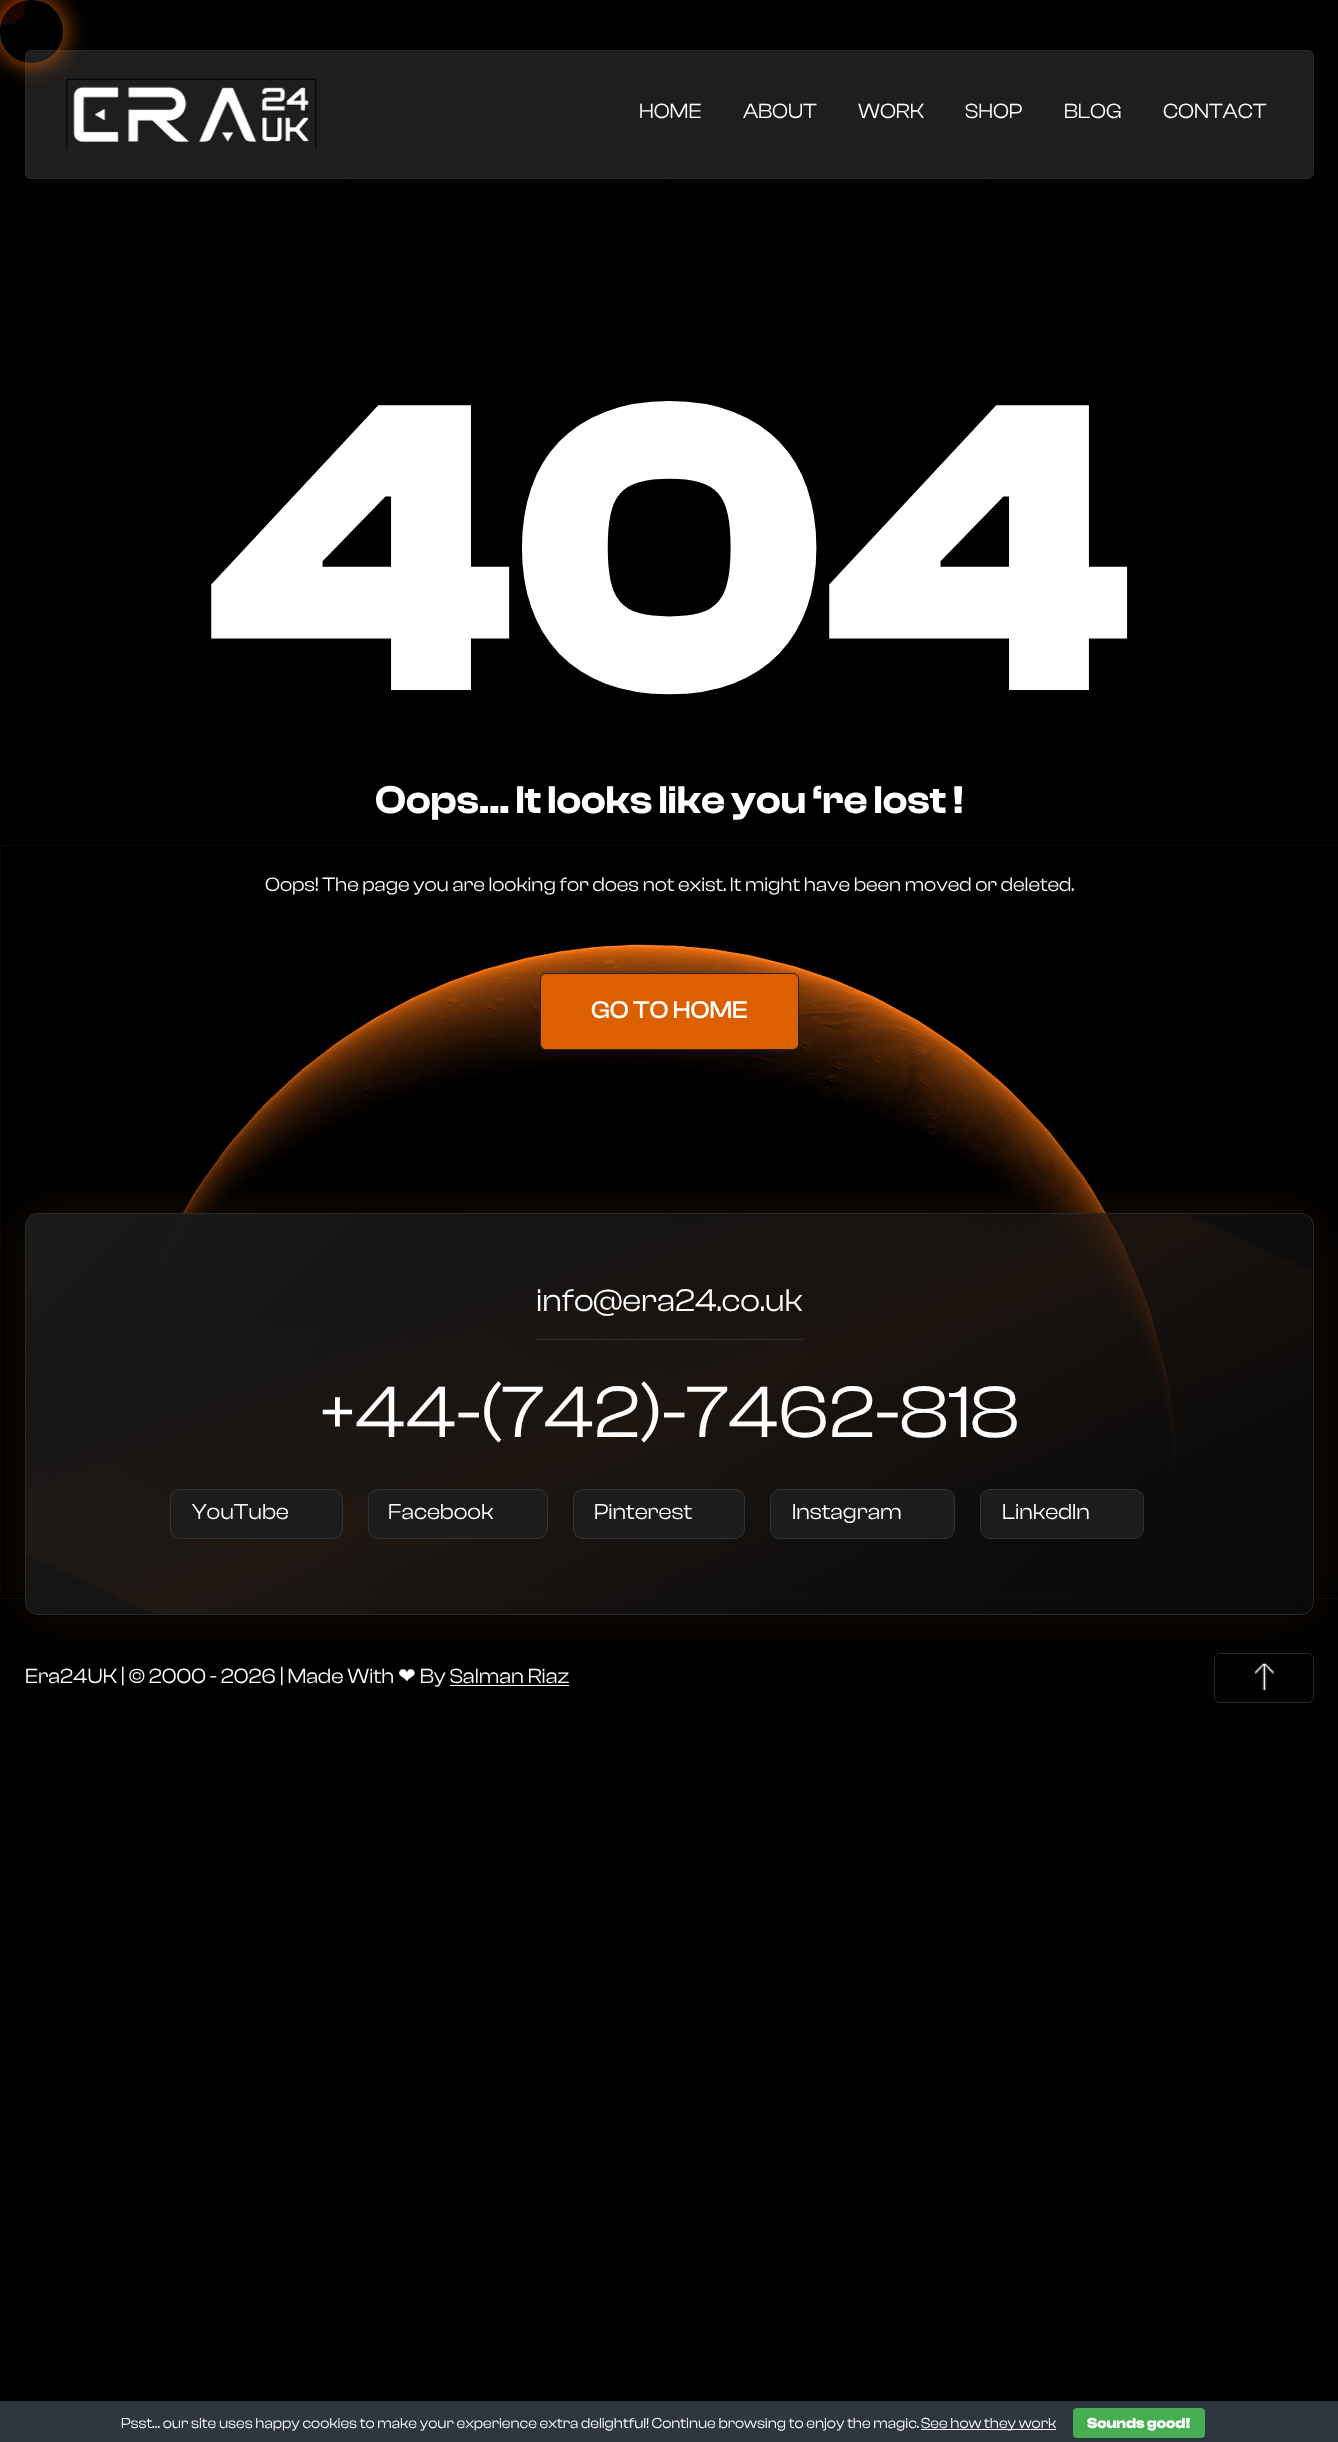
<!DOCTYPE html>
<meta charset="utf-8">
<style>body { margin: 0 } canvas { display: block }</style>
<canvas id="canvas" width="1338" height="2442"></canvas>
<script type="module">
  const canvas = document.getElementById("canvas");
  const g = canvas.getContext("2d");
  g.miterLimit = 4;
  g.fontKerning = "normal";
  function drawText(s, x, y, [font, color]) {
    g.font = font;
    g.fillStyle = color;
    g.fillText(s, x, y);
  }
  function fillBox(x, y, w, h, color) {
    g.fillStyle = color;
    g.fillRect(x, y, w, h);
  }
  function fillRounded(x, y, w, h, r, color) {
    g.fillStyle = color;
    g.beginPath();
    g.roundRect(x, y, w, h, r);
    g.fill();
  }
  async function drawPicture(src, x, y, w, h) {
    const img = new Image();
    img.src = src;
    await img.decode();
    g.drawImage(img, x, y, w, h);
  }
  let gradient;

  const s1 = ["21.25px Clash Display", "#FFFFFF"];
  const s2 = ["bold 425px Clash Display", "#FFFFFF"];
  const s3 = ["600 40px Clash Display", "#FFFFFF"];
  const s4 = ["20px Clash Display", "#FFFFFF"];
  const s5 = ["500 25px Clash Display", "#FFFFFF"];
  const s6 = ["32.5px Clash Display", "#FFFFFF"];
  const s7 = ["75px Clash Display", "#FFFFFF"];
  const s8 = ["22.5px Clash Display", "#FFFFFF"];
  const s9 = ["21.25px DejaVu Sans", "#FFFFFF"];
  const s10 = ["15px Clash Display", "#FFFFFF"];
  const s11 = ["bold 15px Clash Display", "#FFFFFF"];

  fillBox(0, 0, 1338, 2442, "#000000");
  await drawPicture("pic1.png", 0, 845, 1338, 754);
  g.fillStyle = "#1E1E1E";
  g.beginPath();
  g.roundRect(25.5, 50.5, 1288, 128, 5.5);
  g.fill();
  g.strokeStyle = "#292929";
  g.stroke();
  await drawPicture("pic2.png", 66, 78, 251, 72);
  g.save();
  g.beginPath();
  g.moveTo(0, 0);
  g.lineTo(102, 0);
  g.lineTo(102, 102);
  g.lineTo(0, 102);
  g.closePath();
  g.moveTo(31.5, 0);
  g.bezierCurveTo(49, 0, 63, 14, 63, 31.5);
  g.bezierCurveTo(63, 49, 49, 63, 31.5, 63);
  g.bezierCurveTo(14, 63, 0, 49, 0, 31.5);
  g.bezierCurveTo(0, 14, 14, 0, 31.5, 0);
  g.closePath();
  g.clip("evenodd");
  g.fillStyle = "#DC5F00";
  g.filter = "blur(12.5px)";
  g.beginPath();
  g.roundRect(0, 0, 63, 63, 31.5);
  g.fill();
  g.filter = "none";
  g.restore();
  g.fillStyle = "rgba(255, 52, 0, 0.1)";
  g.beginPath();
  g.arc(6.5, 6.5, 18.5, 0, Math.PI * 2);
  g.fill();
  drawText("HOME", 639, 118, s1);
  drawText("ABOUT", 743, 118, s1);
  drawText("WORK", 858, 118, s1);
  drawText("SHOP", 965, 118, s1);
  drawText("BLOG", 1064, 118, s1);
  drawText("CONTACT", 1163, 118, s1);
  drawText("404", 207, 690, s2);
  drawText("Oops... It looks like you ‘re lost !", 375, 813, s3);
  drawText("Oops! The page you are looking for does not exist. It might have been moved or deleted.", 265, 891, s4);
  g.fillStyle = "#DC5F00";
  g.beginPath();
  g.roundRect(540.5, 973.5, 258, 76, 5.5);
  g.fill();
  g.strokeStyle = "#242424";
  g.stroke();
  drawText("GO TO HOME", 591, 1018, s5);
  fillBox(450, 1685, 119, 1, "#FFFFFF");
  g.beginPath();
  g.roundRect(1214.5, 1653.5, 99, 49, 5.5);
  g.strokeStyle = "#292929";
  g.stroke();
  await drawPicture("pic3.png", 1255, 1663, 19, 27);
  g.save();
  g.beginPath();
  g.moveTo(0, 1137);
  g.lineTo(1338, 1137);
  g.lineTo(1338, 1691);
  g.lineTo(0, 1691);
  g.closePath();
  g.moveTo(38, 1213);
  g.lineTo(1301, 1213);
  g.bezierCurveTo(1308, 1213, 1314, 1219, 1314, 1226);
  g.lineTo(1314, 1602);
  g.bezierCurveTo(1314, 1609, 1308, 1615, 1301, 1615);
  g.lineTo(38, 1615);
  g.bezierCurveTo(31, 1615, 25, 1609, 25, 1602);
  g.lineTo(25, 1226);
  g.bezierCurveTo(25, 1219, 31, 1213, 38, 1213);
  g.closePath();
  g.clip("evenodd");
  g.fillStyle = "rgba(220, 95, 0, 0.1)";
  g.filter = "blur(25px)";
  g.beginPath();
  g.roundRect(25, 1213, 1289, 402, 13);
  g.fill();
  g.filter = "none";
  g.restore();
  g.save();
  g.beginPath();
  g.roundRect(25, 1213, 1289, 402, 13);
  g.clip();
  gradient = g.createLinearGradient(248, 992, 1091, 1835);
  gradient.addColorStop(0, "rgba(26, 26, 26, 0.99)");
  gradient.addColorStop(1, "rgba(17, 17, 17, 0.54)");
  g.fillStyle = gradient;
  g.fillRect(26, 1214, 1287, 400);
  g.restore();
  g.beginPath();
  g.roundRect(25.5, 1213.5, 1288, 401, 12.5);
  g.stroke();
  fillBox(536, 1339, 267, 1, "rgba(255, 255, 255, 0.13)");
  gradient = g.createLinearGradient(262, 293, 1077, 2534);
  gradient.addColorStop(0.4, "rgba(255, 102, 0, 0)");
  gradient.addColorStop(0.5, "rgba(255, 102, 0, 0.05)");
  gradient.addColorStop(0.6, "rgba(255, 102, 0, 0)");
  g.fillStyle = gradient;
  g.beginPath();
  g.moveTo(37, 1214);
  g.lineTo(1189, 1214);
  g.lineTo(1313, 1272);
  g.lineTo(1313, 1603);
  g.bezierCurveTo(1313, 1609, 1308, 1614, 1302, 1614);
  g.lineTo(154, 1614);
  g.lineTo(26, 1554);
  g.lineTo(26, 1225);
  g.bezierCurveTo(26, 1219, 31, 1214, 37, 1214);
  g.closePath();
  g.fill();
  drawText("info@era24.co.uk", 536, 1311, s6);
  drawText("+44-(742)-7462-818", 320, 1437, s7);
  g.fillStyle = "#1C1C1C";
  g.beginPath();
  g.roundRect(170.5, 1489.5, 172, 49, 9.5);
  g.fill();
  g.strokeStyle = "#333333";
  g.stroke();
  drawText("YouTube", 192, 1519, s8);
  g.fillStyle = "#1C1C1C";
  g.beginPath();
  g.roundRect(368.5, 1489.5, 179, 49, 9.5);
  g.fill();
  g.stroke();
  drawText("Facebook", 388, 1519, s8);
  g.fillStyle = "#1C1C1C";
  g.beginPath();
  g.roundRect(573.5, 1489.5, 171, 49, 9.5);
  g.fill();
  g.stroke();
  drawText("Pinterest", 594, 1519, s8);
  g.fillStyle = "#1C1C1C";
  g.beginPath();
  g.roundRect(770.5, 1489.5, 184, 49, 9.5);
  g.fill();
  g.stroke();
  drawText("Instagram", 792, 1519, s8);
  g.fillStyle = "#1C1C1C";
  g.beginPath();
  g.roundRect(980.5, 1489.5, 163, 49, 9.5);
  g.fill();
  g.stroke();
  drawText("LinkedIn", 1002, 1519, s8);
  drawText("Era24UK | © 2000 - 2026 | Made With", 25, 1683, s1);
  drawText("❤", 398, 1683, s9);
  drawText("By Salman Riaz", 420, 1683, s1);
  fillBox(0, 2401, 1338, 41, "#2E363F");
  drawText("Psst… our site uses happy cookies to make your experience extra delightful! Continue browsing to enjoy the magic.", 121, 2428, s10);
  fillBox(921, 2429, 135, 1, "#FFFFFF");
  drawText("See how they work", 921, 2428, s10);
  fillRounded(1073, 2408, 132, 30, 4, "#45AE52");
  drawText("Sounds good!", 1087, 2428, s11);
</script>
